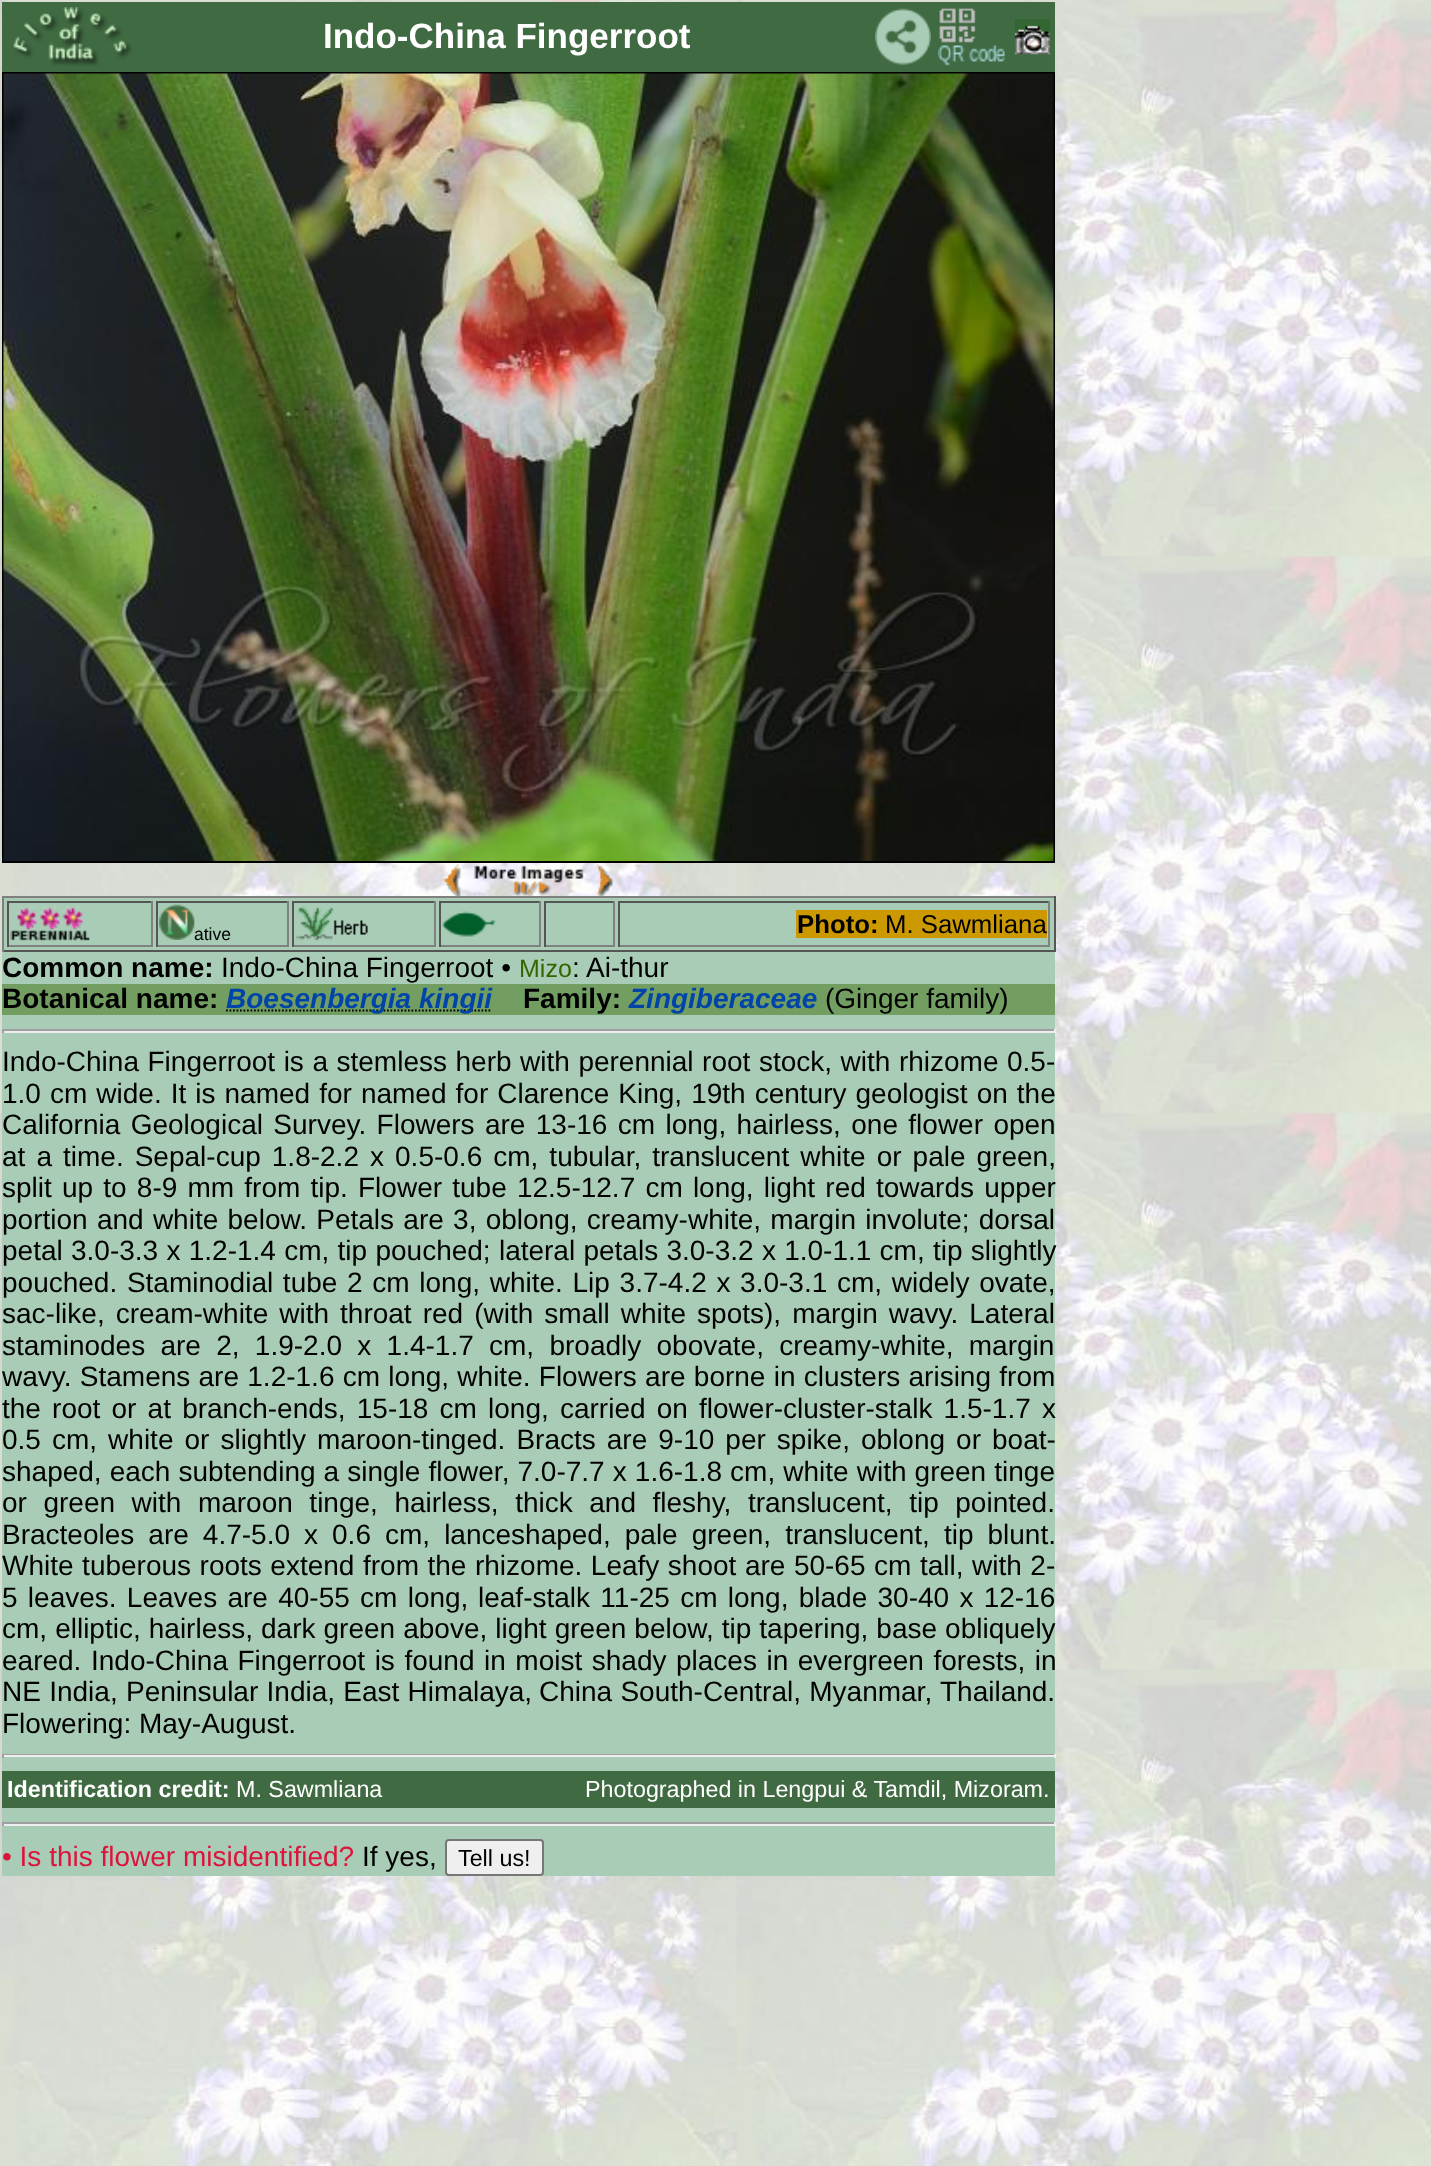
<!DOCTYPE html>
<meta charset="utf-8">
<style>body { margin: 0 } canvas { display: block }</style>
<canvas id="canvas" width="1431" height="2166"></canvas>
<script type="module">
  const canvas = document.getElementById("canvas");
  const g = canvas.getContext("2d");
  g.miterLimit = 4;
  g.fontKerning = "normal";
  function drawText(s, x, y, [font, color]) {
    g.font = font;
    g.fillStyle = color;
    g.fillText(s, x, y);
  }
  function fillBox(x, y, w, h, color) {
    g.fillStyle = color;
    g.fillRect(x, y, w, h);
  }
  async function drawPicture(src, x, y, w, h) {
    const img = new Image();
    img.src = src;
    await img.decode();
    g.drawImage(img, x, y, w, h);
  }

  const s1 = ["bold 35px Liberation Sans", "#FFFFFF"];
  const s2 = ["17.5px Liberation Sans", "#000000"];
  const s3 = ["bold 25.75px Liberation Sans", "#000000"];
  const s4 = ["25.75px Liberation Sans", "#000000"];
  const s5 = ["bold 28px Liberation Sans", "#000000"];
  const s6 = ["28px Liberation Sans", "#000000"];
  const s7 = ["25px Liberation Sans", "#336600"];
  const s8 = ["italic bold 28px Liberation Sans", "#0044AA"];
  const s9 = ["bold 23.3px Liberation Sans", "#FFFFFF"];
  const s10 = ["23.3px Liberation Sans", "#FFFFFF"];
  const s11 = ["28px Liberation Sans", "#DC143C"];
  const s12 = ["23.3px Liberation Sans", "#000000"];

  fillBox(0, 0, 1431, 2166, "#FFFFFF");
  await drawPicture("pic1.png", 0, 0, 1431, 2166);
  fillBox(2, 2, 1053, 70, "#406A42");
  await drawPicture("pic2.png", 13, 7, 120, 59);
  drawText("Indo-China Fingerroot", 323, 48, s1);
  await drawPicture("pic3.png", 875, 8, 56, 57);
  await drawPicture("pic4.png", 938, 8, 67, 58);
  await drawPicture("pic5.png", 1015, 19, 35, 36);
  g.strokeStyle = "#000000";
  g.lineWidth = 2;
  g.strokeRect(3, 73, 1051, 789);
  await drawPicture("pic6.png", 3, 73, 1051, 788);
  await drawPicture("pic7.png", 444, 864, 17, 32);
  await drawPicture("pic8.png", 474, 865, 110, 31);
  await drawPicture("pic9.png", 596, 864, 17, 32);
  fillBox(2, 898, 1053, 978, "#A8CCB6");
  fillBox(2, 896, 1053, 2, "#808080");
  fillBox(1054, 896, 2, 56, "#555555");
  fillBox(2, 950, 1053, 2, "#555555");
  fillBox(2, 896, 2, 56, "#808080");
  fillBox(7, 901, 145, 2, "#555555");
  fillBox(151, 901, 2, 46, "#808080");
  fillBox(7, 945, 145, 2, "#808080");
  fillBox(7, 901, 2, 46, "#555555");
  await drawPicture("pic10.png", 10, 906, 80, 35);
  fillBox(156, 901, 133, 2, "#555555");
  fillBox(287, 901, 2, 46, "#808080");
  fillBox(156, 945, 133, 2, "#808080");
  fillBox(156, 901, 2, 46, "#555555");
  await drawPicture("pic11.png", 159, 904, 36, 36);
  drawText("ative", 194, 940, s2);
  fillBox(292, 901, 144, 2, "#555555");
  fillBox(434, 901, 2, 46, "#808080");
  fillBox(292, 945, 144, 2, "#808080");
  fillBox(292, 901, 2, 46, "#555555");
  await drawPicture("pic12.png", 295, 906, 73, 35);
  fillBox(439, 901, 102, 2, "#555555");
  fillBox(539, 901, 2, 46, "#808080");
  fillBox(439, 945, 102, 2, "#808080");
  fillBox(439, 901, 2, 46, "#555555");
  await drawPicture("pic13.png", 442, 911, 54, 26);
  fillBox(544, 901, 70, 2, "#555555");
  fillBox(613, 901, 2, 46, "#808080");
  fillBox(544, 945, 70, 2, "#808080");
  fillBox(544, 901, 2, 46, "#555555");
  fillBox(618, 901, 432, 2, "#555555");
  fillBox(1048, 901, 2, 46, "#808080");
  fillBox(618, 945, 432, 2, "#808080");
  fillBox(618, 901, 2, 46, "#555555");
  fillBox(796, 910, 251, 28, "#CC9900");
  drawText("Photo:", 797, 933, s3);
  drawText("M. Sawmliana", 885, 933, s4);
  drawText("Common name:", 2, 977, s5);
  drawText("Indo-China Fingerroot •", 221, 977, s6);
  drawText("Mizo", 519, 977, s7);
  drawText(": Ai-thur", 572, 977, s6);
  fillBox(2, 984, 1053, 31, "#729E62");
  drawText("Botanical name:", 2, 1008, s5);
  g.beginPath();
  g.moveTo(226, 1010.5);
  g.lineTo(492, 1010.5);
  g.lineWidth = 1.8;
  g.setLineDash([1.75, 1.75]);
  g.stroke();
  drawText("Boesenbergia kingii", 226, 1008, s8);
  drawText("Family:", 523, 1008, s5);
  drawText("Zingiberaceae", 629, 1008, s8);
  drawText("(Ginger family)", 825, 1008, s6);
  fillBox(2, 1029, 1053, 2, "#9F9F9F");
  fillBox(1054, 1029, 2, 4, "#EEEEEE");
  fillBox(2, 1031, 1053, 2, "#EEEEEE");
  fillBox(2, 1029, 2, 4, "#9F9F9F");
  g.wordSpacing = "0.75px";
  drawText("Indo-China Fingerroot is a stemless herb with perennial root stock, with rhizome 0.5-", 2, 1071, s6);
  g.wordSpacing = "1.25px";
  drawText("1.0 cm wide. It is named for named for Clarence King, 19th century geologist on the", 2, 1103, s6);
  g.wordSpacing = "2.6px";
  drawText("California Geological Survey. Flowers are 13-16 cm long, hairless, one flower open", 2, 1134, s6);
  g.wordSpacing = "3.25px";
  drawText("at a time. Sepal-cup 1.8-2.2 x 0.5-0.6 cm, tubular, translucent white or pale green,", 2, 1166, s6);
  g.wordSpacing = "2.4px";
  drawText("split up to 8-9 mm from tip. Flower tube 12.5-12.7 cm long, light red towards upper", 2, 1197, s6);
  g.wordSpacing = "1.5px";
  drawText("portion and white below. Petals are 3, oblong, creamy-white, margin involute; dorsal", 2, 1229, s6);
  g.wordSpacing = "0.5px";
  drawText("petal 3.0-3.3 x 1.2-1.4 cm, tip pouched; lateral petals 3.0-3.2 x 1.0-1.1 cm, tip slightly", 2, 1260, s6);
  g.wordSpacing = "1.9px";
  drawText("pouched. Staminodial tube 2 cm long, white. Lip 3.7-4.2 x 3.0-3.1 cm, widely ovate,", 2, 1292, s6);
  g.wordSpacing = "3.25px";
  drawText("sac-like, cream-white with throat red (with small white spots), margin wavy. Lateral", 2, 1323, s6);
  g.wordSpacing = "7.5px";
  drawText("staminodes are 2, 1.9-2.0 x 1.4-1.7 cm, broadly obovate, creamy-white, margin", 2, 1355, s6);
  g.wordSpacing = "0.5px";
  drawText("wavy. Stamens are 1.2-1.6 cm long, white. Flowers are borne in clusters arising from", 2, 1386, s6);
  g.wordSpacing = "3.4px";
  drawText("the root or at branch-ends, 15-18 cm long, carried on flower-cluster-stalk 1.5-1.7 x", 2, 1418, s6);
  g.wordSpacing = "3.25px";
  drawText("0.5 cm, white or slightly maroon-tinged. Bracts are 9-10 per spike, oblong or boat-", 2, 1449, s6);
  g.wordSpacing = "0.3px";
  drawText("shaped, each subtending a single flower, 7.0-7.7 x 1.6-1.8 cm, white with green tinge", 2, 1481, s6);
  g.wordSpacing = "8.75px";
  drawText("or green with maroon tinge, hairless, thick and fleshy, translucent, tip pointed.", 2, 1512, s6);
  g.wordSpacing = "6.25px";
  drawText("Bracteoles are 4.7-5.0 x 0.6 cm, lanceshaped, pale green, translucent, tip blunt.", 2, 1544, s6);
  g.wordSpacing = "0.75px";
  drawText("White tuberous roots extend from the rhizome. Leafy shoot are 50-65 cm tall, with 2-", 2, 1575, s6);
  g.wordSpacing = "2.5px";
  drawText("5 leaves. Leaves are 40-55 cm long,", 2, 1607, s6);
  drawText("leaf-stalk 11-25 cm long, blade 30-40 x 12-16", 478, 1607, s6);
  g.wordSpacing = "0.25px";
  drawText("cm, elliptic, hairless, dark green above, light green below, tip tapering, base obliquely", 2, 1638, s6);
  g.wordSpacing = "0px";
  drawText("eared.", 2, 1670, s6);
  g.wordSpacing = "1.75px";
  drawText("Indo-China Fingerroot is found in moist shady places in evergreen forests, in", 91, 1670, s6);
  g.wordSpacing = "0.5px";
  drawText("NE India, Peninsular India, East Himalaya,", 2, 1701, s6);
  drawText("China South-Central, Myanmar, Thailand.", 539, 1701, s6);
  g.wordSpacing = "0px";
  drawText("Flowering: May-August.", 2, 1733, s6);
  fillBox(2, 1754, 1053, 1, "#9F9F9F");
  fillBox(1054, 1754, 2, 4, "#EEEEEE");
  fillBox(2, 1755, 1053, 2, "#EEEEEE");
  fillBox(2, 1754, 2, 4, "#9F9F9F");
  fillBox(2, 1771, 1053, 37, "#406A42");
  drawText("Identification credit:", 7, 1797, s9);
  drawText("M. Sawmliana", 236, 1797, s10);
  drawText("Photographed in Lengpui & Tamdil, Mizoram.", 585, 1797, s10);
  fillBox(2, 1822, 1053, 2, "#9F9F9F");
  fillBox(1054, 1822, 2, 4, "#EEEEEE");
  fillBox(2, 1824, 1053, 2, "#EEEEEE");
  fillBox(2, 1822, 2, 4, "#9F9F9F");
  drawText("• Is this flower misidentified?", 2, 1866, s11);
  drawText("If yes,", 362, 1866, s6);
  g.fillStyle = "#EFEFEF";
  g.beginPath();
  g.roundRect(446, 1840, 97, 35, 3);
  g.fill();
  g.strokeStyle = "#767676";
  g.lineWidth = 2;
  g.setLineDash([]);
  g.stroke();
  drawText("Tell us!", 458, 1866, s12);
</script>
